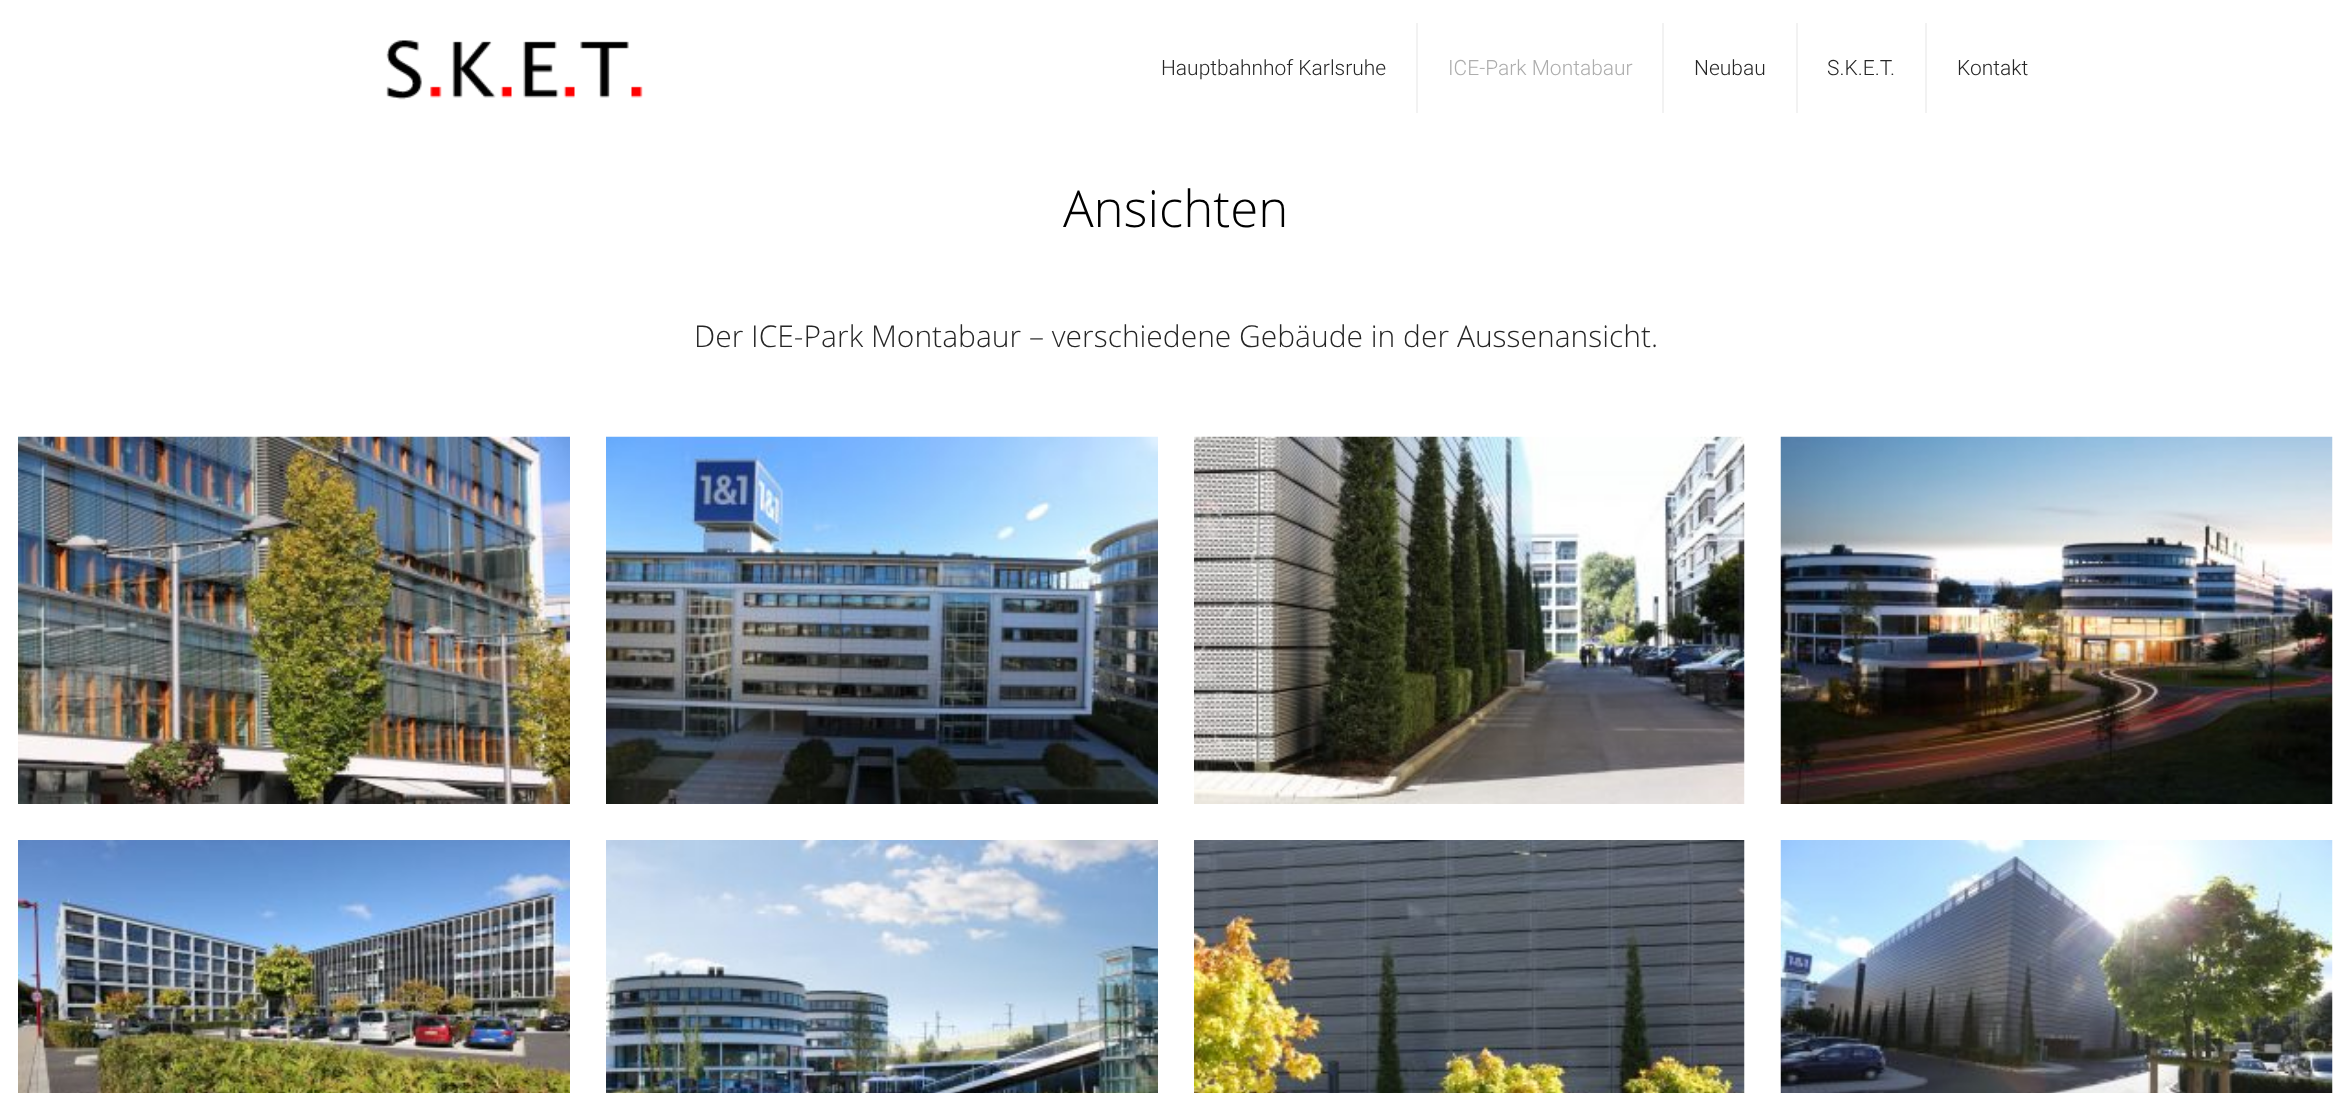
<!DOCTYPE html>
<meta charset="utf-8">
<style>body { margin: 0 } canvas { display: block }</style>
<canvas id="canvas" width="2351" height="1093"></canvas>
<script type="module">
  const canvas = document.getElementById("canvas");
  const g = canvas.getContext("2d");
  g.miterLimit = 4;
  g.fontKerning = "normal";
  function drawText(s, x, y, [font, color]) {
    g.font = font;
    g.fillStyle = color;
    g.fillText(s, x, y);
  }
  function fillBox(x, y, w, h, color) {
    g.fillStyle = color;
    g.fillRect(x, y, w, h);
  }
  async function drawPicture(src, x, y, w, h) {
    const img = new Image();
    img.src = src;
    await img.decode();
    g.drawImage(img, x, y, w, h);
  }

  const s1 = ["300 21px Roboto", "#262626"];
  const s2 = ["300 21px Roboto", "#ADADAD"];
  const s3 = ["300 51px Open Sans", "#000000"];
  const s4 = ["300 30px Open Sans", "#262626"];

  fillBox(0, 0, 2351, 1093, "#FFFFFF");
  await drawPicture("pic1.png", 386, 40, 257, 60);
  fillBox(1416, 23, 2, 90, "#F2F2F2");
  drawText("Hauptbahnhof Karlsruhe", 1161, 75, s1);
  fillBox(1662, 23, 2, 90, "#F2F2F2");
  drawText("ICE-Park Montabaur", 1448, 75, s2);
  fillBox(1796, 23, 2, 90, "#F2F2F2");
  drawText("Neubau", 1694, 75, s1);
  fillBox(1925, 23, 2, 90, "#F2F2F2");
  drawText("S.K.E.T.", 1827, 75, s1);
  drawText("Kontakt", 1957, 75, s1);
  drawText("Ansichten", 1063, 227, s3);
  drawText("Der ICE-Park Montabaur – verschiedene Gebäude in der Aussenansicht.", 694, 347, s4);
  await drawPicture("pic2.png", 18, 436, 552, 368);
  await drawPicture("pic3.png", 606, 436, 552, 368);
  await drawPicture("pic4.png", 1194, 436, 551, 368);
  await drawPicture("pic5.png", 1780, 436, 553, 368);
  await drawPicture("pic6.png", 18, 840, 552, 253);
  await drawPicture("pic7.png", 606, 840, 552, 253);
  await drawPicture("pic8.png", 1194, 840, 551, 253);
  await drawPicture("pic9.png", 1780, 840, 553, 253);
</script>
